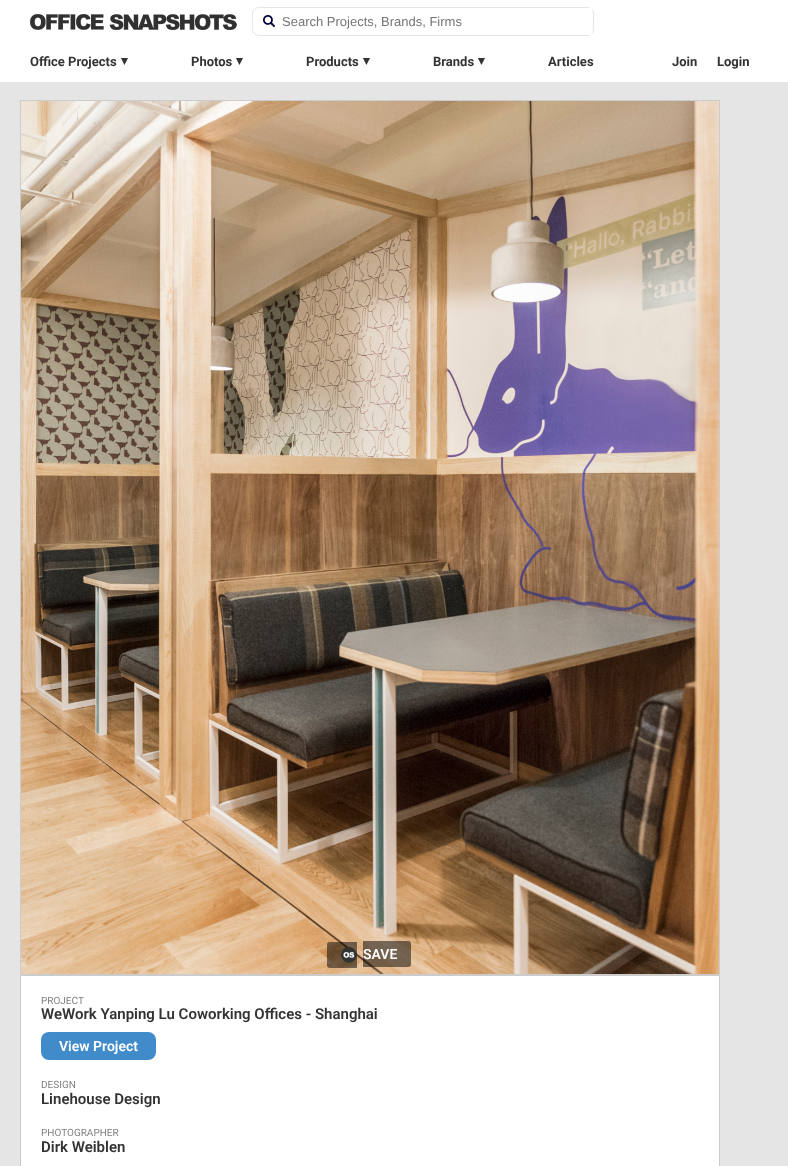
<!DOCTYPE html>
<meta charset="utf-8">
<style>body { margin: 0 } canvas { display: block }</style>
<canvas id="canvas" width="788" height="1166"></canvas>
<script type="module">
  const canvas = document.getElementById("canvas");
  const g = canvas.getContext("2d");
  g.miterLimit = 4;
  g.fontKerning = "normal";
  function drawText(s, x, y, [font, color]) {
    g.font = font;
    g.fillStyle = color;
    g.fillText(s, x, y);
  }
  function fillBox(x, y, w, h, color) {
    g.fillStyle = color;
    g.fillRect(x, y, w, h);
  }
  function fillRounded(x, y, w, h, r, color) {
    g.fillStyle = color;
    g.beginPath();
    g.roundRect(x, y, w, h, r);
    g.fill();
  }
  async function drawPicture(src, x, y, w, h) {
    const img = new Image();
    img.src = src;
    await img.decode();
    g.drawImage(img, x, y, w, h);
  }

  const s1 = ["13px Liberation Sans", "#757575"];
  const s2 = ["bold 13px Roboto", "#333333"];
  const s3 = ["bold 13px DejaVu Sans", "#333333"];
  const s4 = ["600 14px Roboto", "#FFFFFF"];
  const s5 = ["10px Roboto", "#808080"];
  const s6 = ["600 15px Roboto", "#333333"];

  fillBox(0, 0, 788, 1166, "#E5E5E5");
  fillBox(0, 0, 788, 82, "#FFFFFF");
  await drawPicture("pic1.png", 30, 14, 207, 16);
  g.beginPath();
  g.roundRect(252.5, 7.5, 341, 28, 6.5);
  g.strokeStyle = "#E6E6E6";
  g.stroke();
  await drawPicture("pic2.png", 263, 15, 12, 12);
  fillBox(588, 8, 4, 27, "#FFFFFF");
  drawText("Search Projects, Brands, Firms", 282, 26, s1);
  drawText("Office Projects", 30, 66, s2);
  drawText("▾", 121, 65, s3);
  drawText("Photos", 191, 66, s2);
  drawText("▾", 236, 65, s3);
  drawText("Products", 306, 66, s2);
  drawText("▾", 363, 65, s3);
  drawText("Brands", 433, 66, s2);
  drawText("▾", 478, 65, s3);
  drawText("Articles", 548, 66, s2);
  drawText("Join", 672, 66, s2);
  drawText("Login", 717, 66, s2);
  g.strokeStyle = "#CCCCCC";
  g.strokeRect(20.5, 100.5, 699, 874);
  await drawPicture("pic3.png", 21, 101, 698, 873);
  g.fillStyle = "rgba(0, 0, 0, 0.5)";
  g.beginPath();
  g.roundRect(327, 942, 30, 26, [3, 0, 0, 3]);
  g.fill();
  g.beginPath();
  g.roundRect(363, 941, 48, 26, [0, 3, 3, 0]);
  g.fill();
  await drawPicture("pic4.png", 341, 947, 16, 16);
  drawText("SAVE", 363, 959, s4);
  g.beginPath();
  g.rect(20.5, 975.5, 699, 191);
  g.fill();
  g.stroke();
  drawText("PROJECT", 41, 1004, s5);
  drawText("WeWork Yanping Lu Coworking Offices - Shanghai", 41, 1019, s6);
  fillRounded(41, 1032, 115, 28, 8, "#428BCA");
  drawText("View Project", 59, 1051, s4);
  drawText("DESIGN", 41, 1088, s5);
  drawText("Linehouse Design", 41, 1104, s6);
  drawText("PHOTOGRAPHER", 41, 1136, s5);
  drawText("Dirk Weiblen", 41, 1152, s6);
</script>
